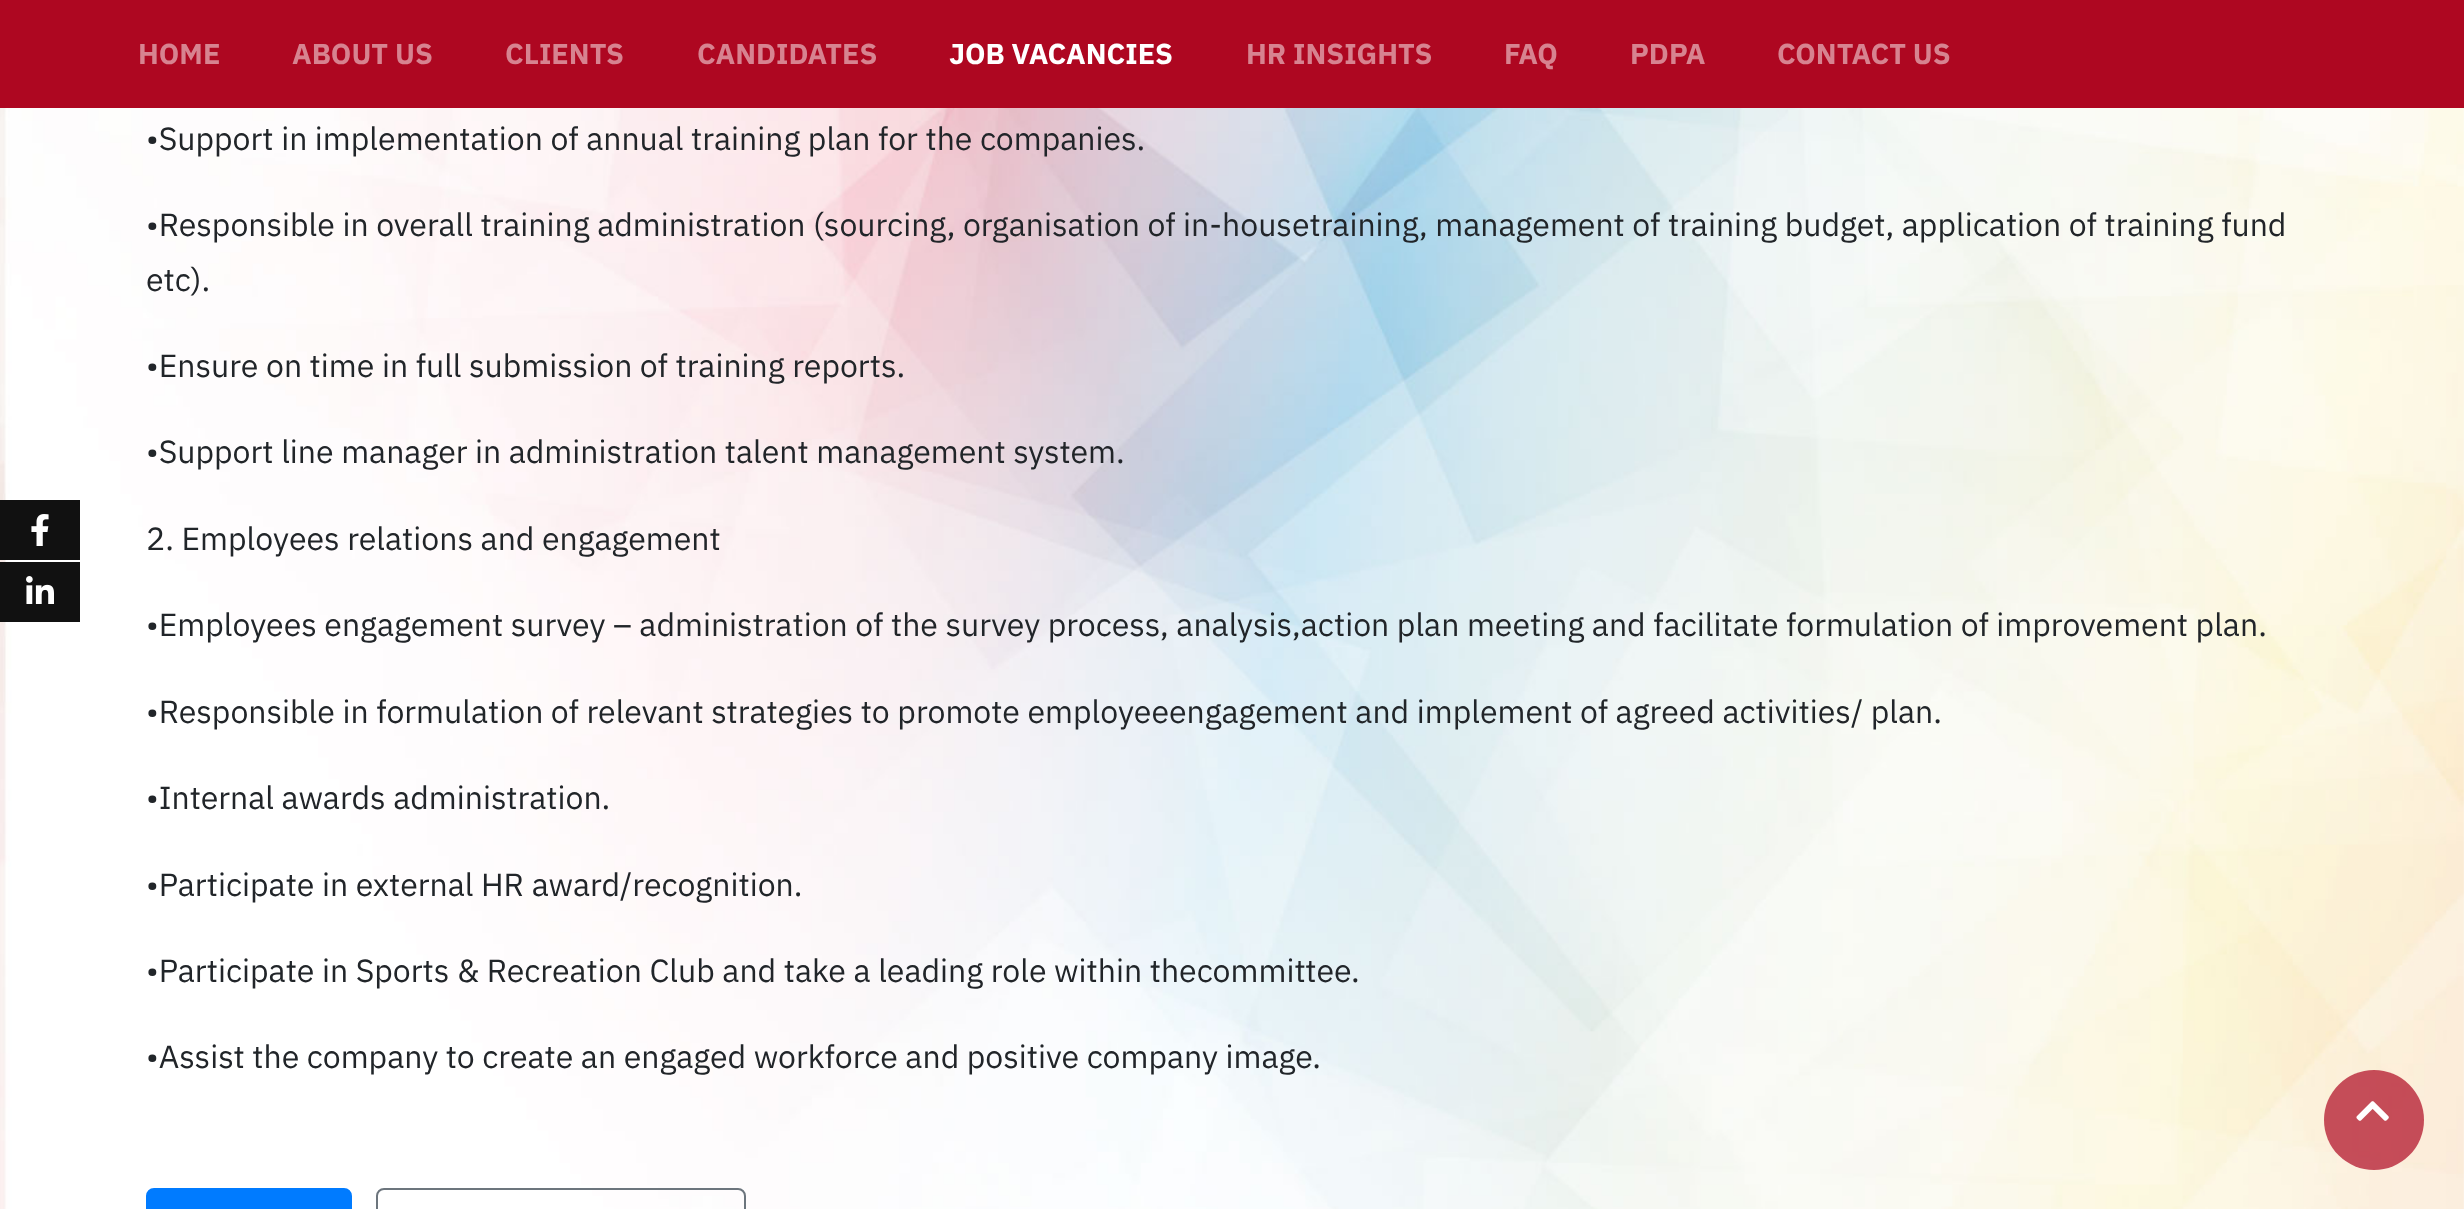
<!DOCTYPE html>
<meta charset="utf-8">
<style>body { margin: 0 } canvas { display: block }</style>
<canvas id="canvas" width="2464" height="1209"></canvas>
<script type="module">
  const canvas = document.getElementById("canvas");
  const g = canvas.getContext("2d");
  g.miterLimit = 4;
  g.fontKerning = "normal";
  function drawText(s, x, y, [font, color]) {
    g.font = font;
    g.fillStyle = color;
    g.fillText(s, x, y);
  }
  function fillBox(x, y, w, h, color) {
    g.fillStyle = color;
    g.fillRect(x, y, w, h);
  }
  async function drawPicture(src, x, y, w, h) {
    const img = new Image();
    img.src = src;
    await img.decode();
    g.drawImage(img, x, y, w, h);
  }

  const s1 = ["bold 28.75px IBM Plex Sans", "#D78390"];
  const s2 = ["bold 28.75px IBM Plex Sans", "#FFFFFF"];
  const s3 = ["32px IBM Plex Sans", "#212529"];

  fillBox(0, 0, 2464, 1209, "#FFFFFF");
  await drawPicture("pic1.png", 0, 108, 2464, 1101);
  fillBox(0, 0, 2464, 108, "#AE0721");
  drawText("HOME", 138, 64, s1);
  drawText("ABOUT US", 292, 64, s1);
  drawText("CLIENTS", 505, 64, s1);
  drawText("CANDIDATES", 697, 64, s1);
  drawText("JOB VACANCIES", 949, 64, s2);
  drawText("HR INSIGHTS", 1246, 64, s1);
  drawText("FAQ", 1504, 64, s1);
  drawText("PDPA", 1630, 64, s1);
  drawText("CONTACT US", 1777, 64, s1);
  fillBox(0, 500, 80, 60, "#111111");
  await drawPicture("pic2.png", 31, 514, 18, 32);
  fillBox(0, 562, 80, 60, "#111111");
  await drawPicture("pic3.png", 26, 576, 28, 28);
  drawText("•Support in implementation of annual training plan for the companies.", 146, 150, s3);
  drawText("•Responsible in overall training administration (sourcing, organisation of in-housetraining, management of training budget, application of training fund", 146, 236, s3);
  drawText("etc).", 146, 291, s3);
  drawText("•Ensure on time in full submission of training reports.", 146, 377, s3);
  drawText("•Support line manager in administration talent management system.", 146, 463, s3);
  drawText("2. Employees relations and engagement", 146, 550, s3);
  drawText("•Employees engagement survey – administration of the survey process, analysis,action plan meeting and facilitate formulation of improvement plan.", 146, 636, s3);
  drawText("•Responsible in formulation of relevant strategies to promote employeeengagement and implement of agreed activities/ plan.", 146, 723, s3);
  drawText("•Internal awards administration.", 146, 809, s3);
  drawText("•Participate in external HR award/recognition.", 146, 896, s3);
  drawText("•Participate in Sports & Recreation Club and take a leading role within thecommittee.", 146, 982, s3);
  drawText("•Assist the company to create an engaged workforce and positive company image.", 146, 1068, s3);
  g.fillStyle = "#007BFF";
  g.beginPath();
  g.roundRect(147, 1189, 204, 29, 7);
  g.fill();
  g.strokeStyle = "#007BFF";
  g.lineWidth = 2;
  g.stroke();
  g.beginPath();
  g.roundRect(377, 1189, 368, 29, 7);
  g.strokeStyle = "#6C757D";
  g.stroke();
  g.fillStyle = "rgba(174, 7, 33, 0.7)";
  g.beginPath();
  g.arc(2374, 1120, 50, 0, Math.PI * 2);
  g.fill();
  await drawPicture("pic4.png", 2356, 1101, 33, 20);
</script>
